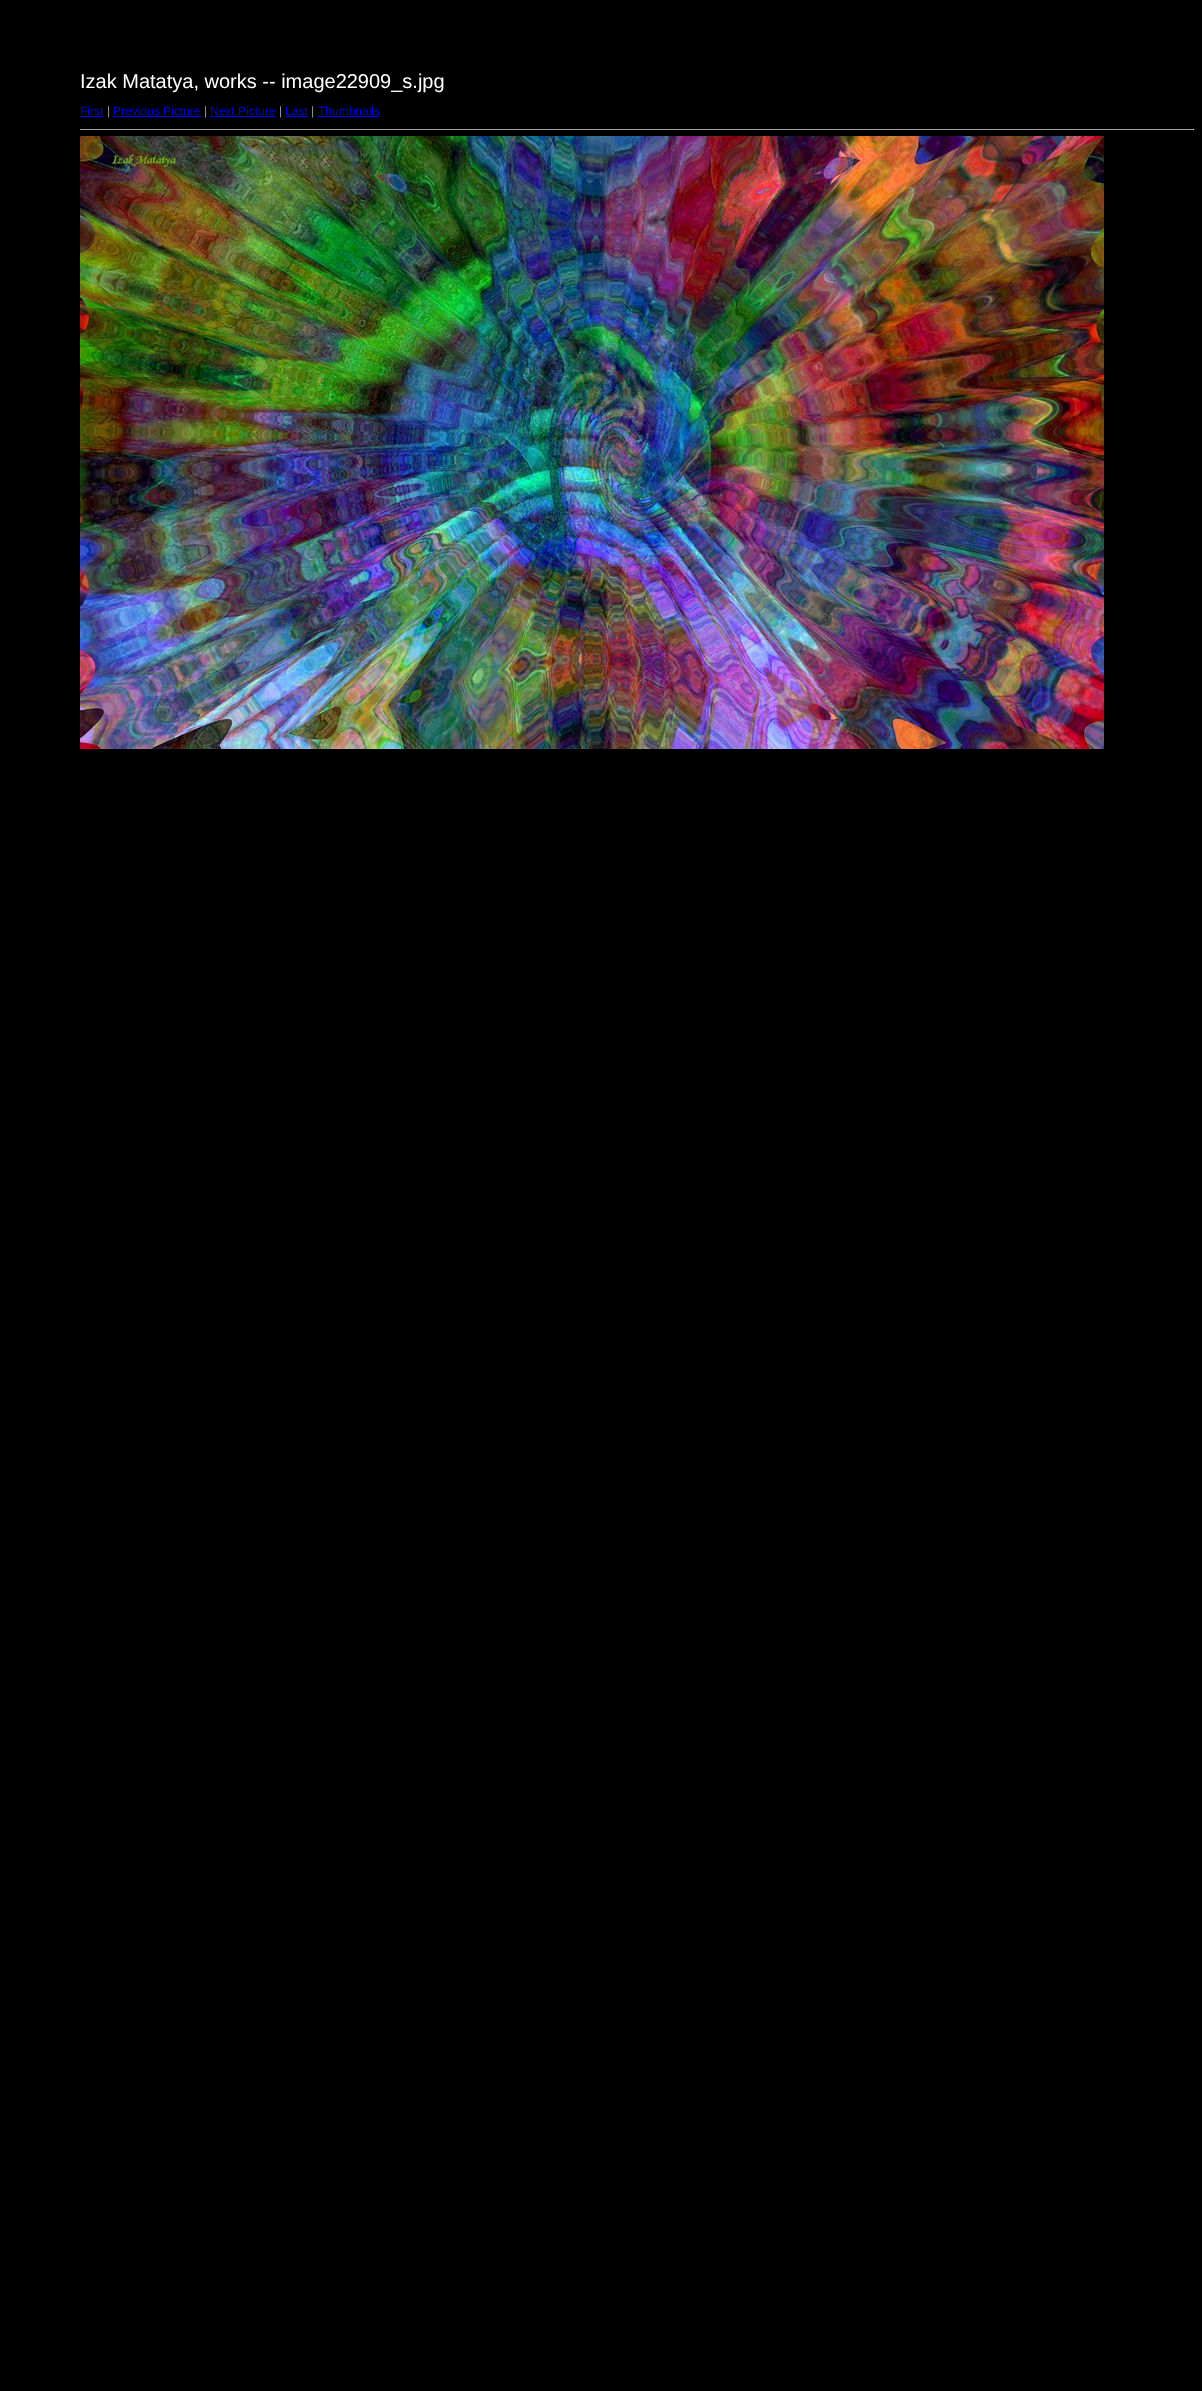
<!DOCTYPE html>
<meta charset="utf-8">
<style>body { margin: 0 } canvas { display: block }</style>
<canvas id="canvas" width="1202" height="2391"></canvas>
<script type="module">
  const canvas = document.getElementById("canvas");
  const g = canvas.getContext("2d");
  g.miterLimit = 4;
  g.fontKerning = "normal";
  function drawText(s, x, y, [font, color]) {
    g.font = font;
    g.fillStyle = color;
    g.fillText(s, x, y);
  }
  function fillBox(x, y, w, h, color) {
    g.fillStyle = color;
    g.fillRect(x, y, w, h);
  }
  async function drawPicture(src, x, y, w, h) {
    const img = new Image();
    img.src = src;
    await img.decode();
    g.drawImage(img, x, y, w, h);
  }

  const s1 = ["20px Liberation Sans", "#FFFFFF"];
  const s2 = ["12px Liberation Sans", "#0000EE"];
  const s3 = ["12px Liberation Sans", "#999999"];

  fillBox(0, 0, 1202, 2391, "#000000");
  drawText("Izak Matatya, works -- image22909_s.jpg", 80, 88, s1);
  drawText("First", 80, 115, s2);
  fillBox(80, 116, 23, 1, "#0000EE");
  drawText("|", 107, 115, s3);
  drawText("Previous Picture", 113, 115, s2);
  fillBox(113, 116, 88, 1, "#0000EE");
  drawText("|", 204, 115, s3);
  drawText("Next Picture", 210, 115, s2);
  fillBox(210, 116, 66, 1, "#0000EE");
  drawText("|", 279, 115, s3);
  drawText("Last", 285, 115, s2);
  fillBox(285, 116, 23, 1, "#0000EE");
  drawText("|", 311, 115, s3);
  drawText("Thumbnails", 318, 115, s2);
  fillBox(318, 116, 62, 1, "#0000EE");
  fillBox(80, 129, 1114, 1, "#9F9F9F");
  fillBox(1193, 129, 1, 1, "#EEEEEE");
  await drawPicture("pic1.png", 80, 136, 1024, 613);
</script>
